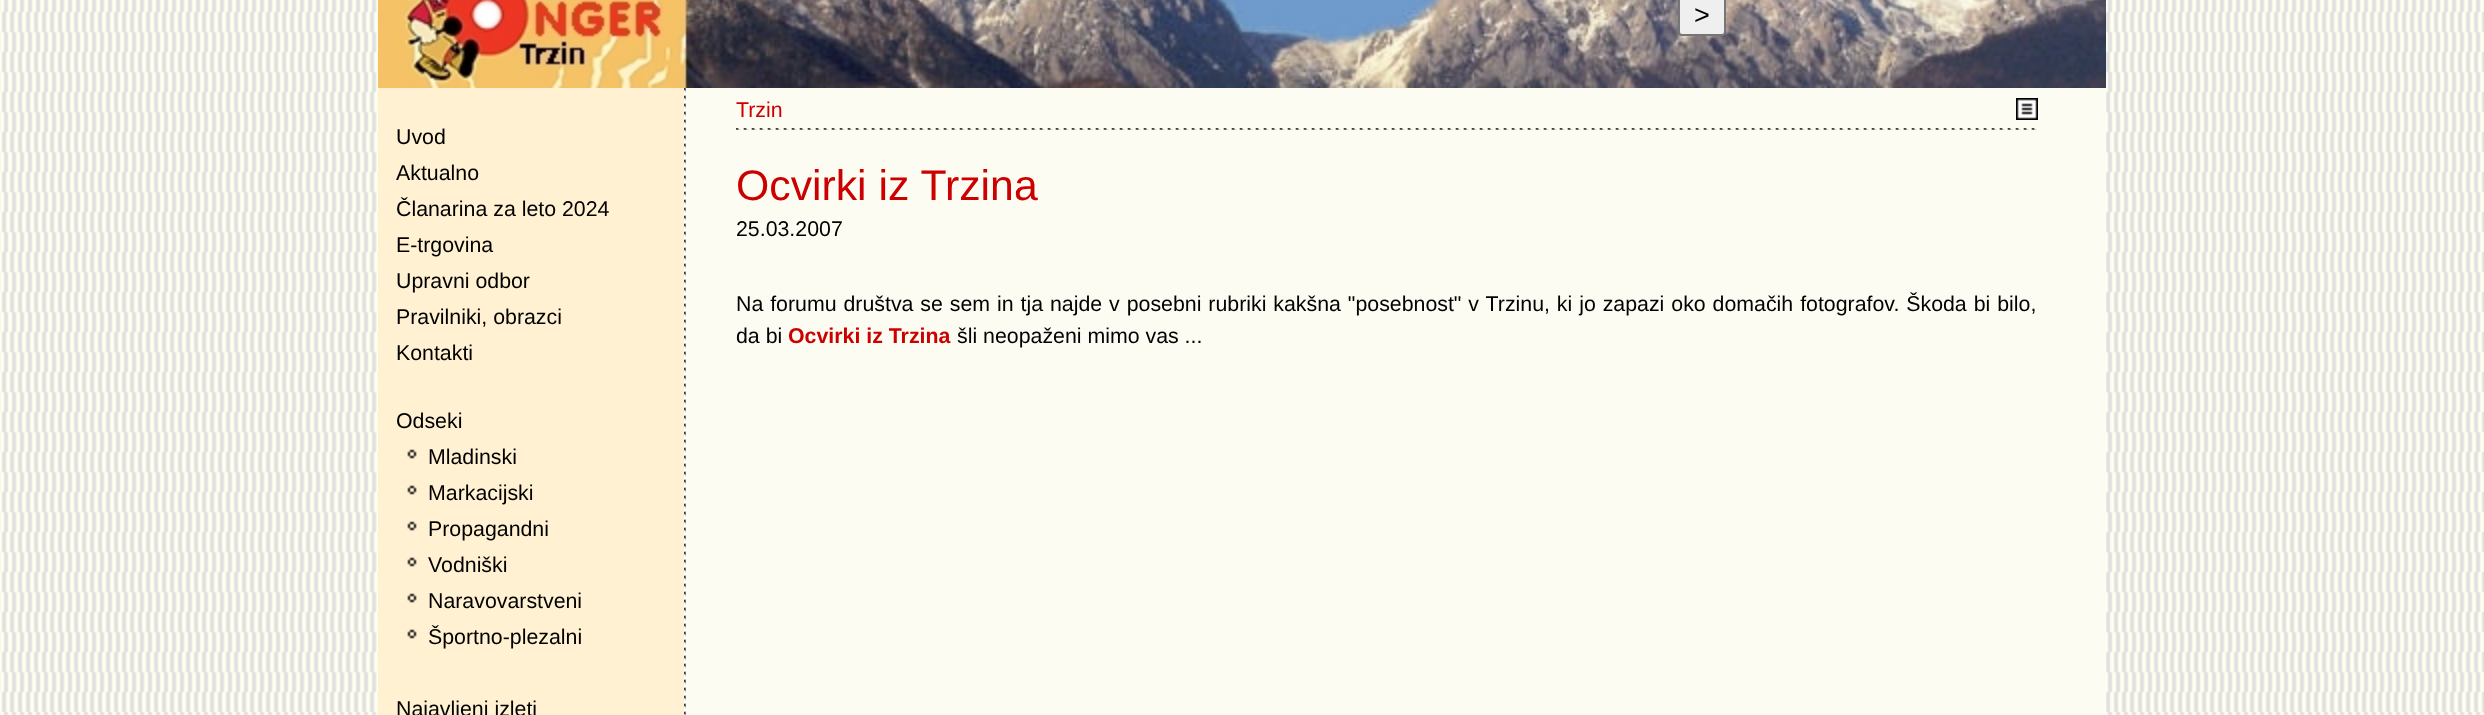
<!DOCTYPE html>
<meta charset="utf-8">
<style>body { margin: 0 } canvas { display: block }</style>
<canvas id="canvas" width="2484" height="715"></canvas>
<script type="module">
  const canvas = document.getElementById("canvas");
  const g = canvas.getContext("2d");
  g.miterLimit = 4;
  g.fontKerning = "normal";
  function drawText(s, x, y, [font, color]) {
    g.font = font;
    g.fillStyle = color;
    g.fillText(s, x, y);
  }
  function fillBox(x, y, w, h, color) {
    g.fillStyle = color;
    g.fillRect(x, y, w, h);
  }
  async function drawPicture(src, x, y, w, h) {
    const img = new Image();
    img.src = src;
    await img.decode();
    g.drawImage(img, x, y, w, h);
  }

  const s1 = ["27px Liberation Sans", "#000000"];
  const s2 = ["21.33px Liberation Sans", "#000000"];
  const s3 = ["21.33px Liberation Sans", "#CC0000"];
  const s4 = ["42.75px Liberation Sans", "#CC0000"];
  const s5 = ["bold 21.33px Liberation Sans", "#CC0000"];

  fillBox(0, 0, 2484, 715, "#FFFFFF");
  await drawPicture("pic1.png", 0, 0, 2484, 715);
  fillBox(684, 88, 2, 627, "#FFFFFF");
  await drawPicture("pic2.png", 378, 0, 1728, 88);
  g.fillStyle = "#EFEFEF";
  g.beginPath();
  g.roundRect(1679, -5, 46, 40, 3);
  g.fill();
  g.strokeStyle = "#767676";
  g.lineWidth = 2;
  g.stroke();
  drawText(">", 1694, 24, s1);
  await drawPicture("pic3.png", 684, 88, 2, 627);
  fillBox(686, 88, 1420, 627, "#FDFCF2");
  fillBox(378, 88, 306, 627, "#FFF1D1");
  drawText("Uvod", 396, 144, s2);
  drawText("Aktualno", 396, 180, s2);
  drawText("Članarina za leto 2024", 396, 216, s2);
  drawText("E-trgovina", 396, 252, s2);
  drawText("Upravni odbor", 396, 288, s2);
  drawText("Pravilniki, obrazci", 396, 324, s2);
  drawText("Kontakti", 396, 360, s2);
  drawText("Odseki", 396, 428, s2);
  await drawPicture("pic4.png", 407, 449, 10, 10);
  drawText("Mladinski", 428, 464, s2);
  await drawPicture("pic4.png", 407, 485, 10, 10);
  drawText("Markacijski", 428, 500, s2);
  await drawPicture("pic4.png", 407, 521, 10, 10);
  drawText("Propagandni", 428, 536, s2);
  await drawPicture("pic4.png", 407, 557, 10, 10);
  drawText("Vodniški", 428, 572, s2);
  await drawPicture("pic4.png", 407, 593, 10, 10);
  drawText("Naravovarstveni", 428, 608, s2);
  await drawPicture("pic4.png", 407, 629, 10, 10);
  drawText("Športno-plezalni", 428, 644, s2);
  drawText("Najavljeni izleti", 396, 716, s2);
  drawText("Trzin", 736, 117, s3);
  await drawPicture("pic5.png", 2016, 98, 22, 22);
  await drawPicture("pic6.png", 736, 128, 1301, 2);
  drawText("Ocvirki iz Trzina", 736, 200, s4);
  drawText("25.03.2007", 736, 236, s2);
  g.wordSpacing = "1px";
  drawText("Na forumu društva se sem in tja najde v posebni rubriki kakšna \"posebnost\" v Trzinu, ki jo zapazi oko domačih fotografov. Škoda bi bilo,", 736, 311, s2);
  g.wordSpacing = "0px";
  drawText("da bi", 736, 343, s2);
  drawText("Ocvirki iz Trzina", 788, 343, s5);
  drawText("šli neopaženi mimo vas ...", 957, 343, s2);
</script>
